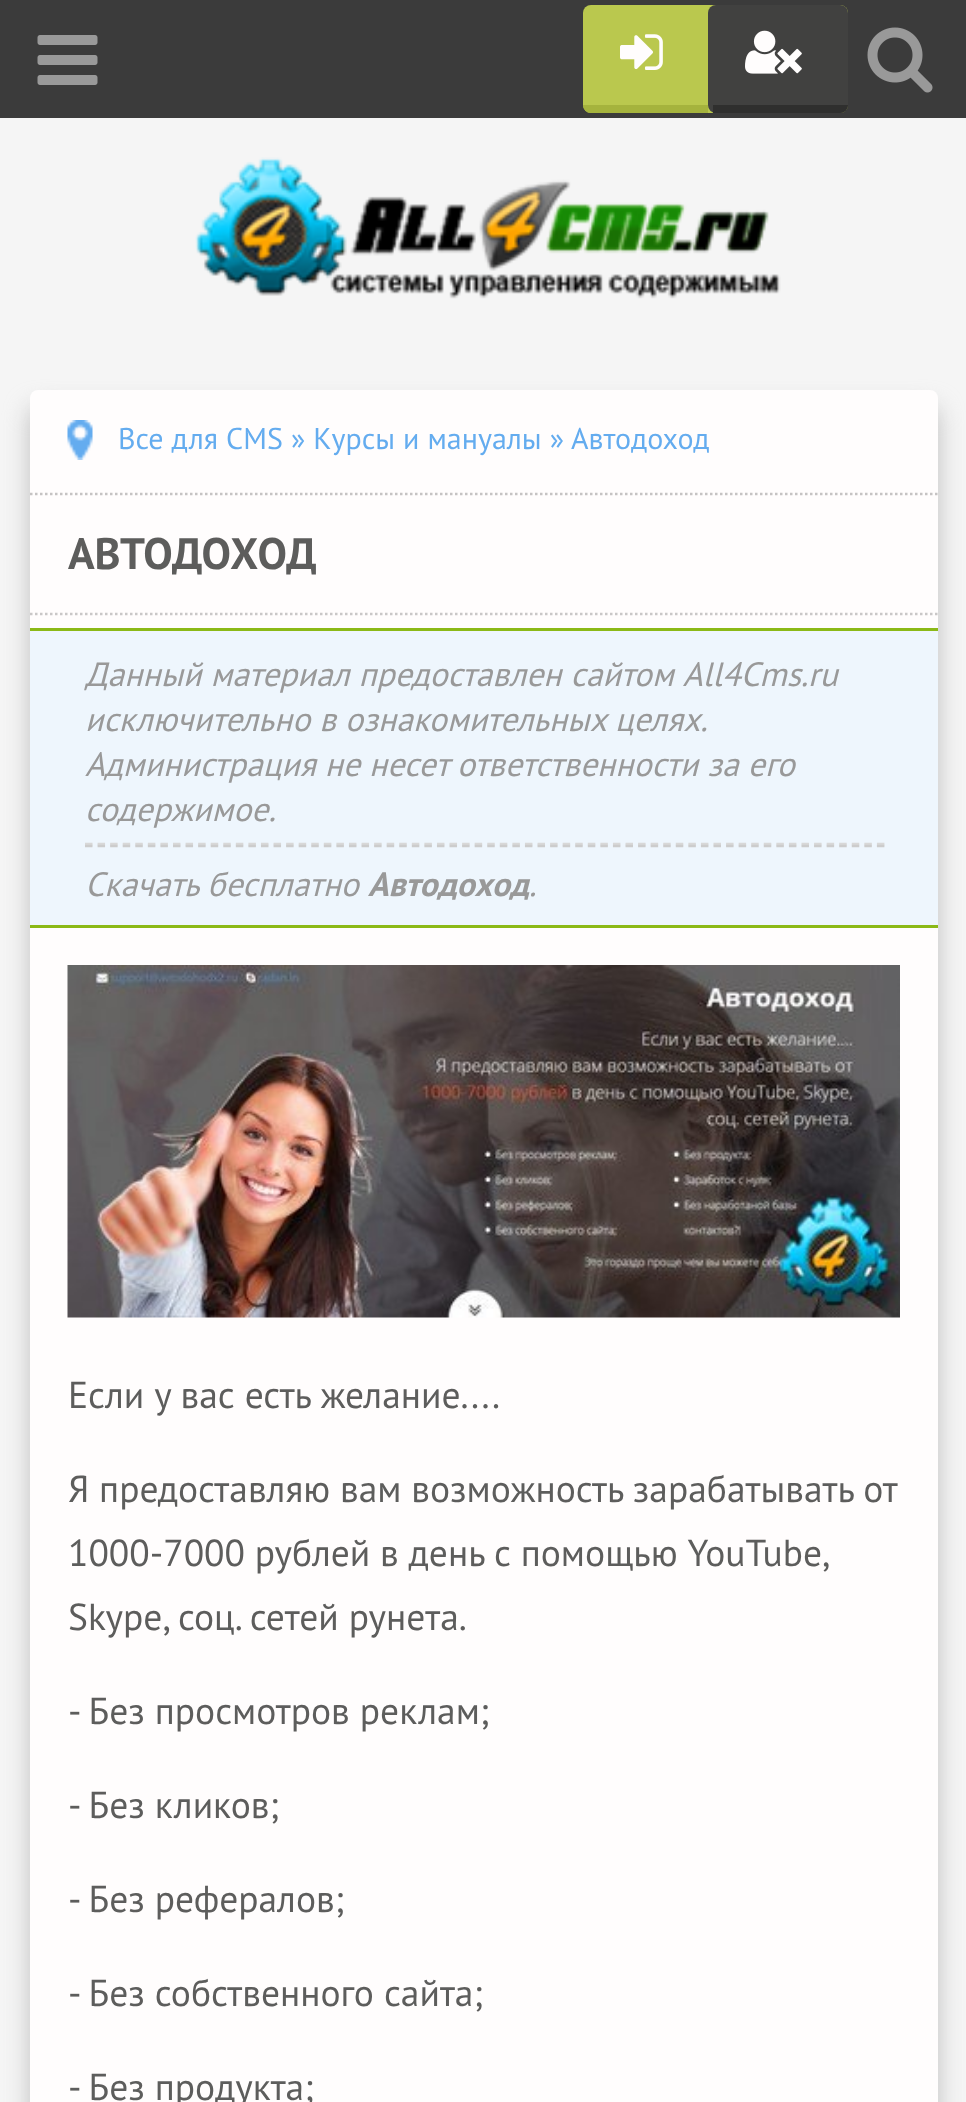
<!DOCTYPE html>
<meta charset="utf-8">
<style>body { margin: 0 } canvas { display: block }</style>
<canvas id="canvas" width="966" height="2102"></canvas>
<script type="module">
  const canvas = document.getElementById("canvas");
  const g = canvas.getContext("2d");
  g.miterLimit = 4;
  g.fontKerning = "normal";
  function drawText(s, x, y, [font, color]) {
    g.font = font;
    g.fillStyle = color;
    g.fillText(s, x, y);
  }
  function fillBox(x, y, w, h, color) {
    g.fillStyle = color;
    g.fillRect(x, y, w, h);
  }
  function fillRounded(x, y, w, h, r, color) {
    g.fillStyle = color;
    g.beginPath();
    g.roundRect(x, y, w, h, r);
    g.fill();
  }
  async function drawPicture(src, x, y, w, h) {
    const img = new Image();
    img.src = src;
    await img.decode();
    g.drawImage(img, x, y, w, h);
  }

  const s1 = ["30px PT Sans", "#64ACEF"];
  const s2 = ["bold 44px PT Sans", "#5D5D5C"];
  const s3 = ["italic 33.75px PT Sans", "#999999"];
  const s4 = ["italic bold 33.75px PT Sans", "#999999"];
  const s5 = ["37.5px PT Sans", "#5D5D5C"];

  fillBox(0, 0, 966, 2102, "#F5F5F5");
  fillBox(0, 0, 966, 118, "#3B3B3B");
  await drawPicture("pic1.png", 37, 35, 61, 50);
  await drawPicture("pic2.png", 867, 27, 66, 66);
  fillRounded(583, 5, 265, 108, 8, "#BAC84E");
  g.fillStyle = "#A5B33D";
  g.beginPath();
  g.roundRect(583, 105, 125, 8, [0, 0, 0, 8]);
  g.fill();
  await drawPicture("pic3.png", 620, 34, 43, 36);
  fillRounded(708, 5, 140, 108, 8, "#414140");
  g.fillStyle = "#2F2F2E";
  g.beginPath();
  g.roundRect(713, 105, 135, 8, [0, 0, 8, 0]);
  g.fill();
  await drawPicture("pic4.png", 745, 30, 57, 44);
  await drawPicture("pic5.png", 195, 157, 586, 142);
  g.fillStyle = "#BEBEBE";
  g.filter = "blur(12.5px)";
  g.beginPath();
  g.roundRect(30, 408, 908, 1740, 8);
  g.fill();
  g.filter = "none";
  fillRounded(30, 390, 908, 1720, 8, "#FFFDFD");
  await drawPicture("pic6.png", 67, 420, 26, 40);
  g.beginPath();
  g.moveTo(30, 494);
  g.lineTo(937.5, 494);
  g.strokeStyle = "#C5C3C3";
  g.lineWidth = 2.5;
  g.setLineDash([2.5, 2.5]);
  g.stroke();
  drawText("Все для CMS » Курсы и мануалы » Автодоход", 118, 449, s1);
  g.beginPath();
  g.moveTo(30, 614);
  g.lineTo(937.5, 614);
  g.strokeStyle = "#C9C7C7";
  g.stroke();
  drawText("АВТОДОХОД", 68, 569, s2);
  fillBox(30, 631, 908, 294, "#EEF6FD");
  fillBox(30, 628, 908, 3, "#8BB917");
  fillBox(30, 925, 908, 3, "#8BB917");
  drawText("Данный материал предоставлен сайтом All4Cms.ru", 85, 686, s3);
  drawText("исключительно в ознакомительных целях.", 85, 731, s3);
  drawText("Администрация не несет ответственности за его", 85, 776, s3);
  drawText("содержимое.", 85, 821, s3);
  g.beginPath();
  g.moveTo(85, 844);
  g.lineTo(885, 844);
  g.strokeStyle = "#D8D8D8";
  g.setLineDash([7.5, 5.07]);
  g.stroke();
  g.beginPath();
  g.moveTo(85, 846);
  g.lineTo(885, 846);
  g.strokeStyle = "#CCCCCC";
  g.stroke();
  drawText("Скачать бесплатно", 85, 896, s3);
  drawText("Автодоход", 368, 896, s4);
  drawText(".", 529, 896, s3);
  await drawPicture("pic7.png", 67, 965, 833, 353);
  drawText("Если у вас есть желание....", 68, 1408, s5);
  g.wordSpacing = "-0.25px";
  drawText("Я предоставляю вам возможность зарабатывать от", 68, 1502, s5);
  drawText("1000-7000 рублей в день с помощью YouTube,", 68, 1566, s5);
  g.wordSpacing = "0px";
  drawText("Skype, соц. сетей рунета.", 68, 1630, s5);
  drawText("- Без просмотров реклам;", 68, 1724, s5);
  drawText("- Без кликов;", 68, 1818, s5);
  drawText("- Без рефералов;", 68, 1912, s5);
  drawText("- Без собственного сайта;", 68, 2006, s5);
  drawText("- Без продукта;", 68, 2100, s5);
</script>
